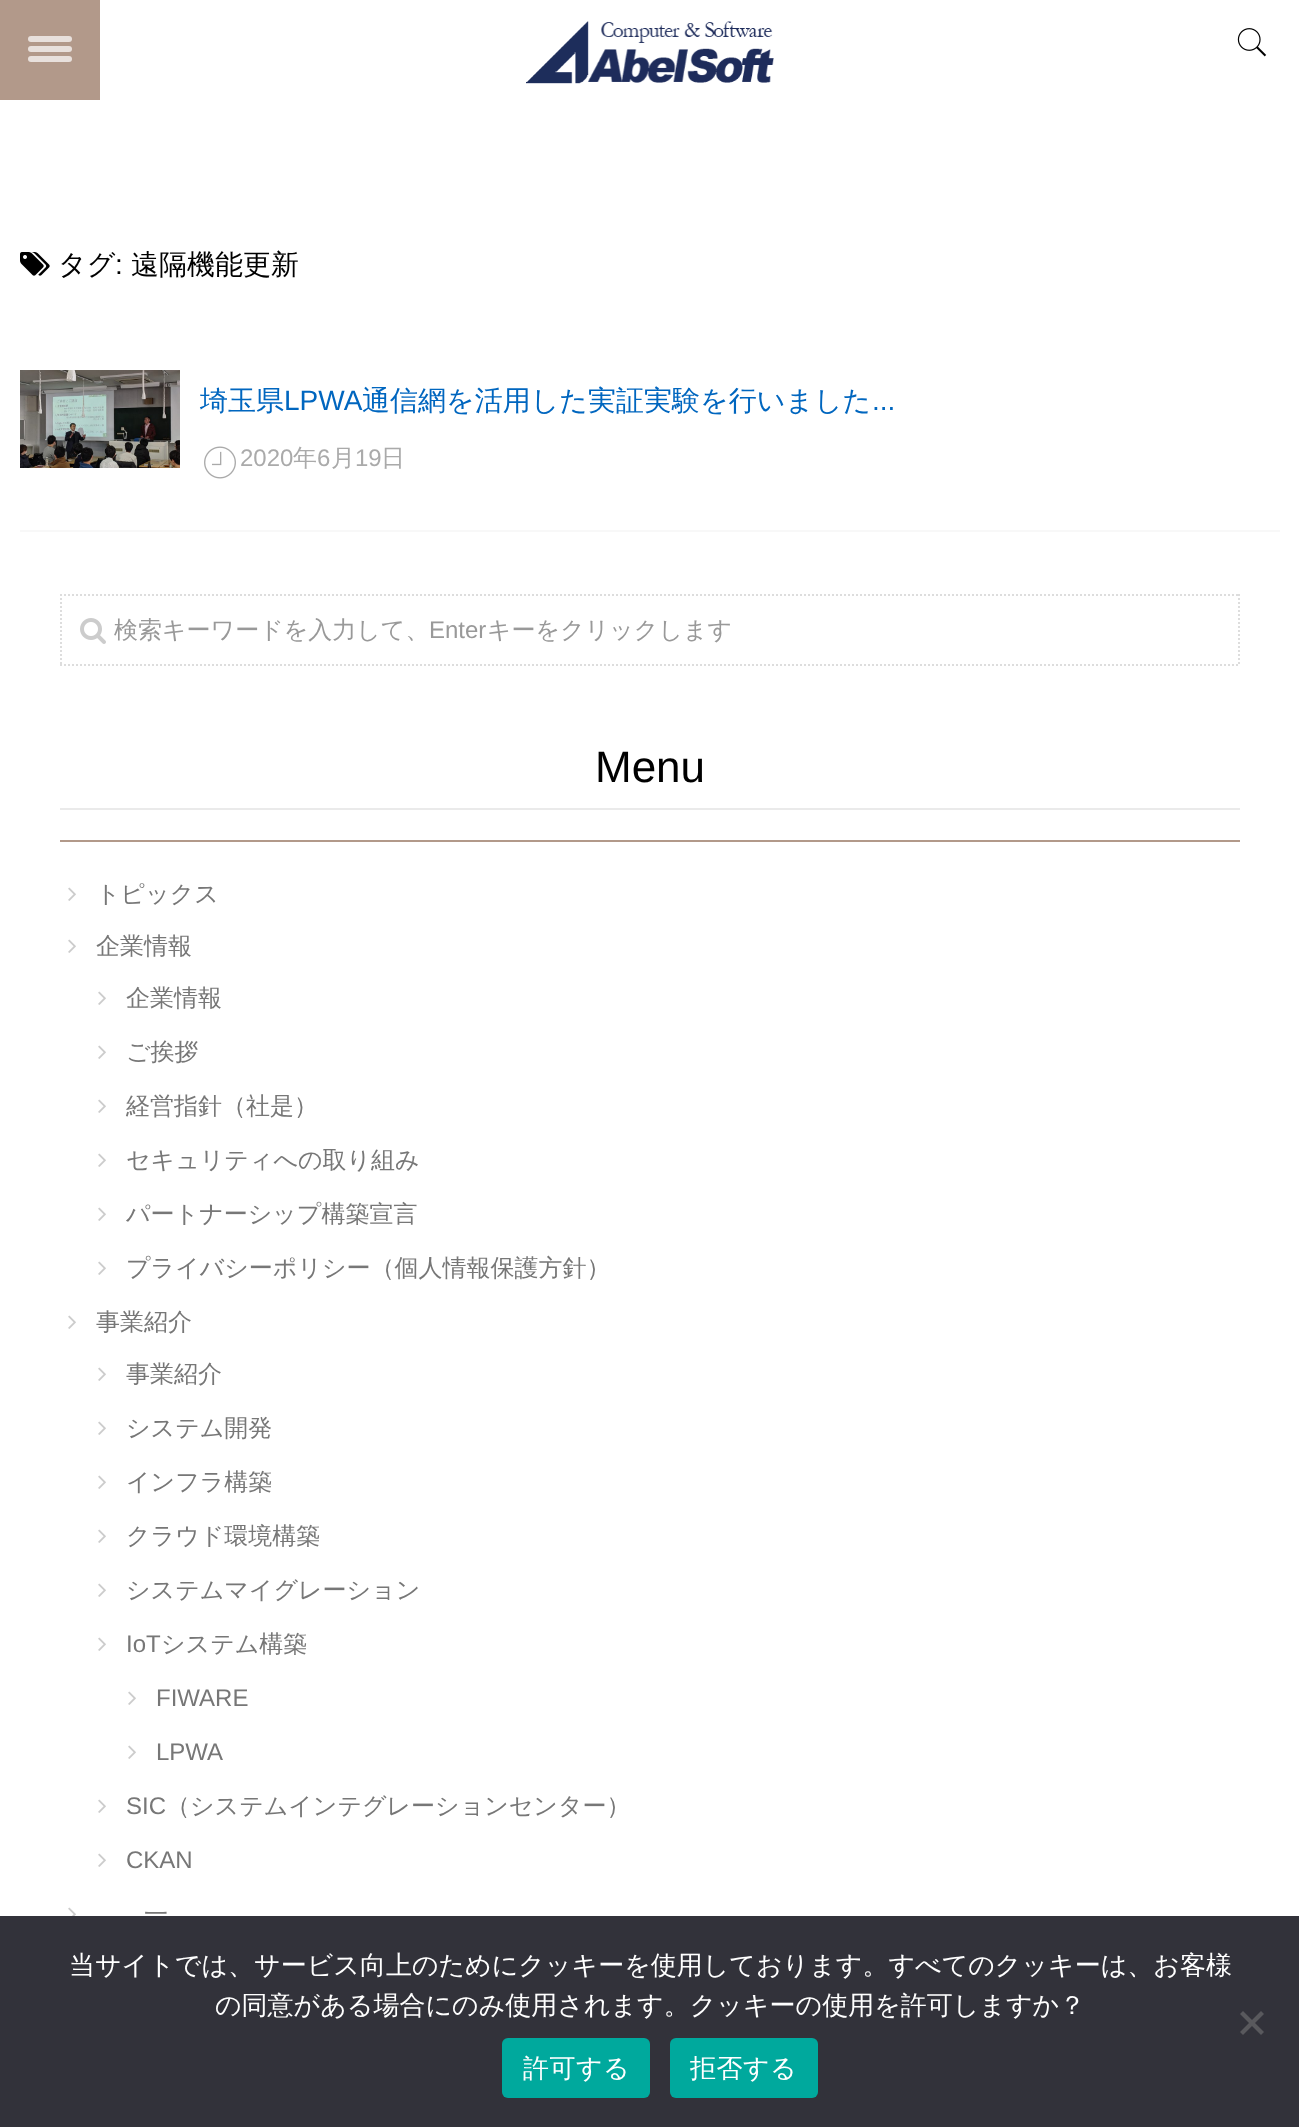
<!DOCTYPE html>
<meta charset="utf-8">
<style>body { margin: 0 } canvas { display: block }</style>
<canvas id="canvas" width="1299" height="2127"></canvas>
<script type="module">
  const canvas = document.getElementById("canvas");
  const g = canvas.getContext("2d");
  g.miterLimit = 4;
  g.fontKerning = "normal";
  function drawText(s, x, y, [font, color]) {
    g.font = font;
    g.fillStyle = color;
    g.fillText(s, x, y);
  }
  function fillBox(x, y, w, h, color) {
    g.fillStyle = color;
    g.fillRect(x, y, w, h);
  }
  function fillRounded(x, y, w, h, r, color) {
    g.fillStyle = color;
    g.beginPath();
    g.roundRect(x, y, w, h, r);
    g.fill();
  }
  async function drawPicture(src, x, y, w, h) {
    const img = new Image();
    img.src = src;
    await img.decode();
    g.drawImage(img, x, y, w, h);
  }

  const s1 = ["500 28px WenQuanYi Zen Hei", "#000000"];
  const s2 = ["28px Liberation Sans", "#000000"];
  const s3 = ["500 28px WenQuanYi Zen Hei", "#0066BF"];
  const s4 = ["28px Liberation Sans", "#0066BF"];
  const s5 = ["24px Liberation Sans", "#AAAAAA"];
  const s6 = ["500 24px WenQuanYi Zen Hei", "#AAAAAA"];
  const s7 = ["500 24px WenQuanYi Zen Hei", "#999999"];
  const s8 = ["24px Liberation Sans", "#999999"];
  const s9 = ["44px Liberation Sans", "#000000"];
  const s10 = ["500 24px WenQuanYi Zen Hei", "#777777"];
  const s11 = ["24px Liberation Sans", "#777777"];
  const s12 = ["500 26px WenQuanYi Zen Hei", "#FFFFFF"];

  fillBox(0, 0, 1299, 2127, "#FFFFFF");
  fillBox(0, 0, 100, 100, "#B2998A");
  fillRounded(28, 36, 44, 6, 3, "#E8E0DC");
  fillRounded(28, 46, 44, 6, 3, "#E8E0DC");
  fillRounded(28, 56, 44, 6, 3, "#E8E0DC");
  await drawPicture("pic1.png", 526, 21, 248, 63);
  await drawPicture("pic2.png", 1237, 28, 30, 29);
  await drawPicture("pic3.png", 20, 252, 30, 24);
  drawText("タグ", 58, 274, s1);
  drawText(":", 115, 274, s2);
  drawText("遠隔機能更新", 131, 274, s1);
  fillBox(20, 530, 1260, 2, "#F8F8F8");
  await drawPicture("pic4.png", 20, 370, 160, 98);
  drawText("埼玉県", 200, 410, s3);
  drawText("LPWA", 284, 410, s4);
  drawText("通信網を活用した実証実験を行いました", 362, 410, s3);
  drawText("...", 872, 410, s4);
  await drawPicture("pic5.png", 204, 446, 32, 33);
  drawText("2020", 240, 466, s5);
  drawText("年", 293, 466, s6);
  drawText("6", 317, 466, s5);
  drawText("月", 331, 466, s6);
  drawText("19", 355, 466, s5);
  drawText("日", 381, 466, s6);
  await drawPicture("pic6.png", 80, 618, 26, 26);
  g.beginPath();
  g.moveTo(60, 595);
  g.lineTo(1240, 595);
  g.strokeStyle = "#DDDDDD";
  g.lineWidth = 2;
  g.setLineDash([2, 2]);
  g.stroke();
  g.beginPath();
  g.moveTo(1239, 594);
  g.lineTo(1239, 666);
  g.stroke();
  g.beginPath();
  g.moveTo(60, 665);
  g.lineTo(1240, 665);
  g.stroke();
  g.beginPath();
  g.moveTo(61, 594);
  g.lineTo(61, 666);
  g.stroke();
  drawText("検索キーワードを入力して、", 114, 638, s7);
  drawText("Enter", 429, 638, s8);
  drawText("キーをクリックします", 487, 638, s7);
  fillBox(60, 840, 1180, 2, "#B2998A");
  drawText("Menu", 595, 782, s9);
  fillBox(60, 808, 1180, 2, "#EAEAEA");
  await drawPicture("pic7.png", 68, 887, 8, 14);
  drawText("トピックス", 96, 902, s10);
  await drawPicture("pic7.png", 68, 939, 8, 14);
  drawText("企業情報", 96, 954, s10);
  await drawPicture("pic7.png", 98, 991, 8, 14);
  drawText("企業情報", 126, 1006, s10);
  await drawPicture("pic7.png", 98, 1045, 8, 14);
  drawText("ご挨拶", 126, 1060, s10);
  await drawPicture("pic7.png", 98, 1099, 8, 14);
  drawText("経営指針（社是）", 126, 1114, s10);
  await drawPicture("pic7.png", 98, 1153, 8, 14);
  drawText("セキュリティへの取り組み", 126, 1168, s10);
  await drawPicture("pic7.png", 98, 1207, 8, 14);
  drawText("パートナーシップ構築宣言", 126, 1222, s10);
  await drawPicture("pic7.png", 98, 1261, 8, 14);
  drawText("プライバシーポリシー（個人情報保護方針）", 126, 1276, s10);
  await drawPicture("pic7.png", 68, 1315, 8, 14);
  drawText("事業紹介", 96, 1330, s10);
  await drawPicture("pic7.png", 98, 1367, 8, 14);
  drawText("事業紹介", 126, 1382, s10);
  await drawPicture("pic7.png", 98, 1421, 8, 14);
  drawText("システム開発", 126, 1436, s10);
  await drawPicture("pic7.png", 98, 1475, 8, 14);
  drawText("インフラ構築", 126, 1490, s10);
  await drawPicture("pic7.png", 98, 1529, 8, 14);
  drawText("クラウド環境構築", 126, 1544, s10);
  await drawPicture("pic7.png", 98, 1583, 8, 14);
  drawText("システムマイグレーション", 126, 1598, s10);
  await drawPicture("pic7.png", 98, 1637, 8, 14);
  drawText("IoT", 126, 1652, s11);
  drawText("システム構築", 161, 1652, s10);
  await drawPicture("pic7.png", 128, 1691, 8, 14);
  drawText("FIWARE", 156, 1706, s11);
  await drawPicture("pic7.png", 128, 1745, 8, 14);
  drawText("LPWA", 156, 1760, s11);
  await drawPicture("pic7.png", 98, 1799, 8, 14);
  drawText("SIC", 126, 1814, s11);
  drawText("（システムインテグレーションセンター）", 166, 1814, s10);
  await drawPicture("pic7.png", 98, 1853, 8, 14);
  drawText("CKAN", 126, 1868, s11);
  await drawPicture("pic8.png", 68, 1907, 8, 9);
  drawText("一", 144, 1922, s10);
  fillBox(0, 1916, 1299, 211, "#32323A");
  drawText("当サイトでは、サービス向上のためにクッキーを使用しております。すべてのクッキーは、お客様", 69, 1974, s12);
  drawText("の同意がある場合にのみ使用されます。クッキーの使用を許可しますか？", 215, 2014, s12);
  g.fillStyle = "#59595D";
  g.beginPath();
  g.moveTo(1261, 2011);
  g.lineTo(1264, 2014);
  g.lineTo(1243, 2035);
  g.lineTo(1240, 2032);
  g.closePath();
  g.fill();
  g.beginPath();
  g.moveTo(1240, 2014);
  g.lineTo(1243, 2011);
  g.lineTo(1264, 2032);
  g.lineTo(1261, 2035);
  g.closePath();
  g.fill();
  fillRounded(502, 2038, 148, 60, 6, "#00A99D");
  g.letterSpacing = "0.5px";
  drawText("許可する", 523, 2077, s12);
  fillRounded(670, 2038, 148, 60, 6, "#00A99D");
  drawText("拒否する", 690, 2077, s12);
</script>
